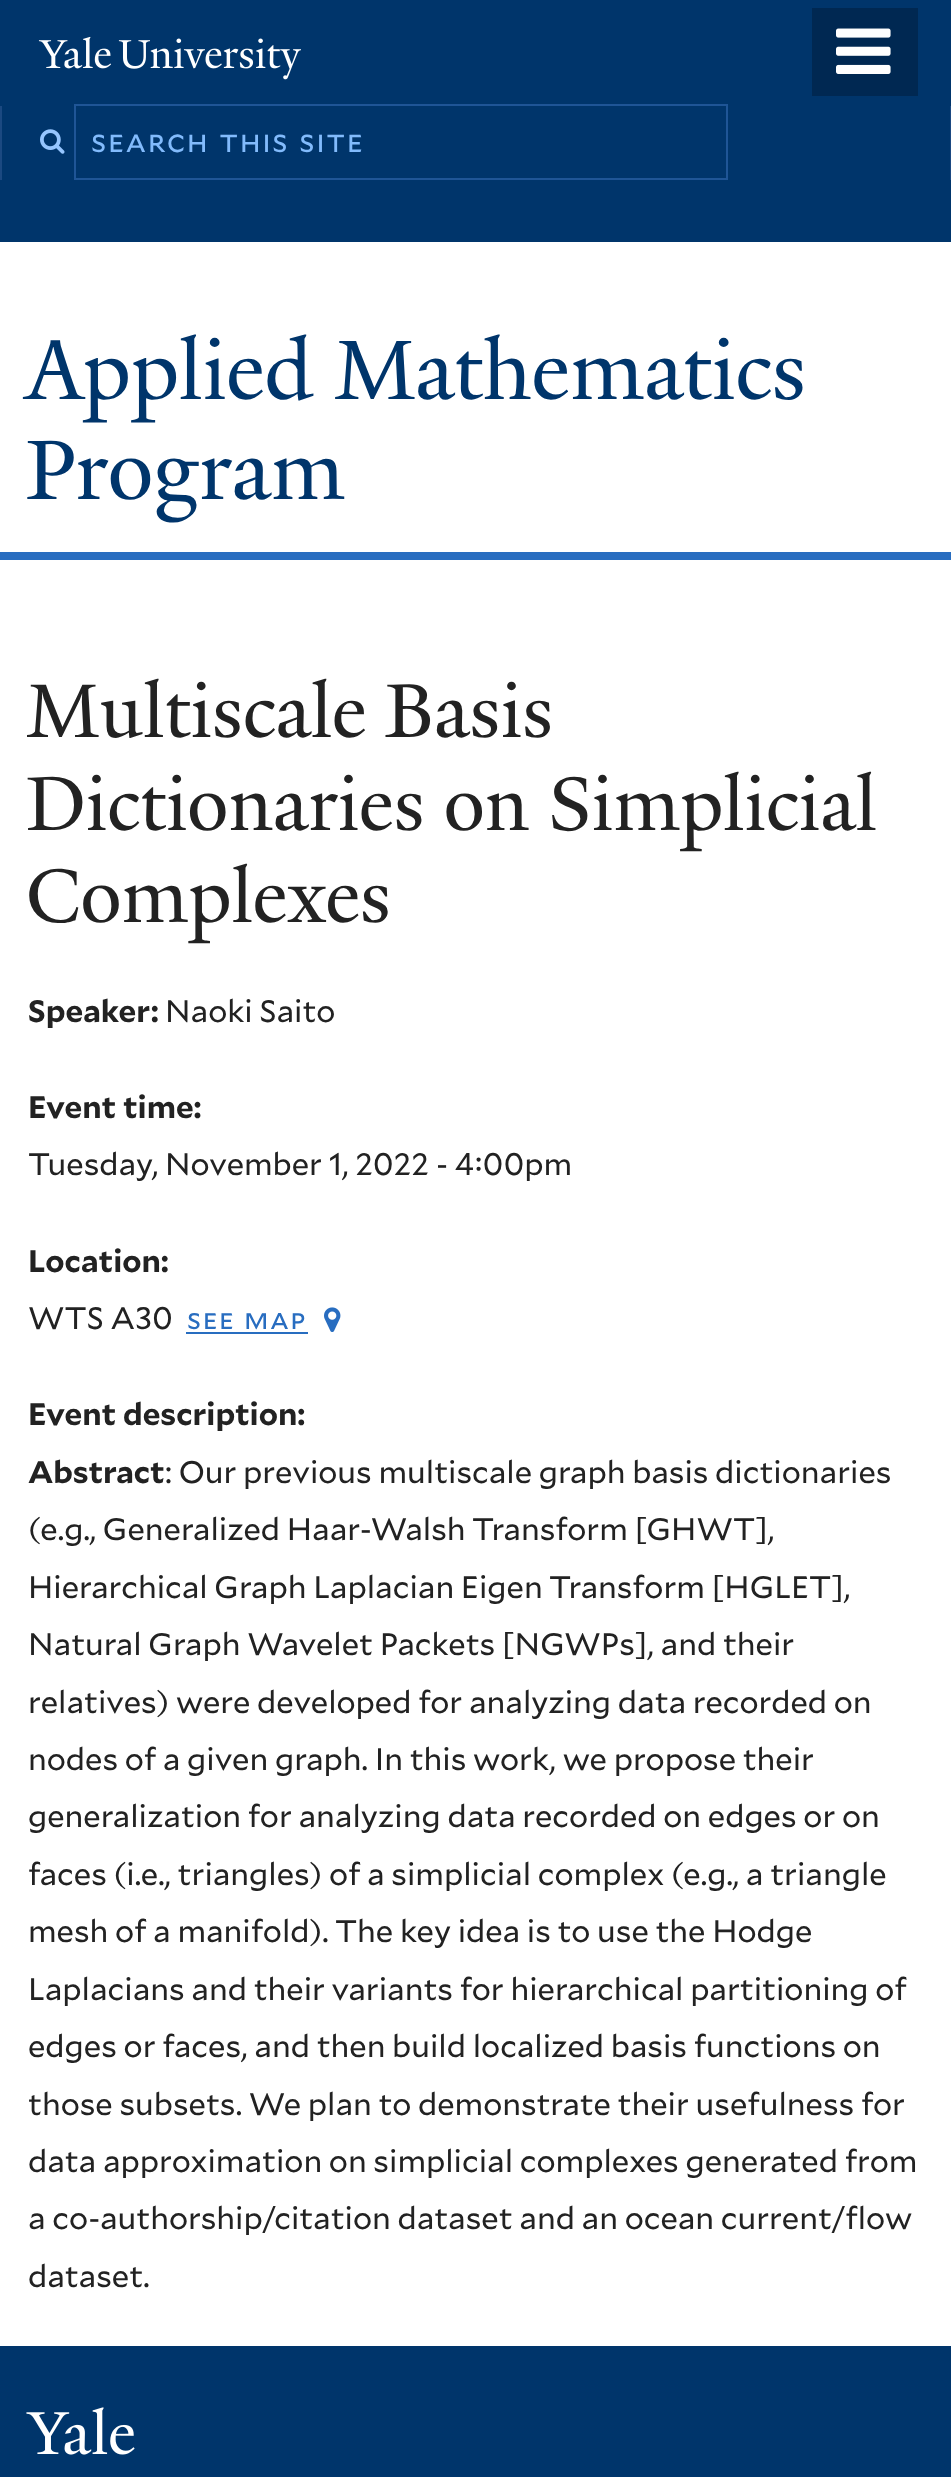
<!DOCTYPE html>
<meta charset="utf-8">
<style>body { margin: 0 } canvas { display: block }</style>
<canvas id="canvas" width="951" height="2477"></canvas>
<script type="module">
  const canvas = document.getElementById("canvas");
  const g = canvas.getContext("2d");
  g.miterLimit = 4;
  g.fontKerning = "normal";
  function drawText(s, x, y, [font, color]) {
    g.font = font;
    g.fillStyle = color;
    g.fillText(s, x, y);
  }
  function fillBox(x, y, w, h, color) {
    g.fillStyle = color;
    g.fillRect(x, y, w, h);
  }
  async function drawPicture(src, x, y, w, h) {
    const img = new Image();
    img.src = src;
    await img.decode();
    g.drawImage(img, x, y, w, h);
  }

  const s1 = ["31.05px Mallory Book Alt", "#82BBFC"];
  const s2 = ["91.25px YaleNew", "#00356B"];
  const s3 = ["82.25px YaleNew", "#222222"];
  const s4 = ["bold 31.05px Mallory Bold", "#222222"];
  const s5 = ["31.05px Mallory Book", "#222222"];
  const s6 = ["28.5px Mallory Book Alt", "#286DC0"];

  fillBox(0, 0, 951, 2477, "#FFFFFF");
  fillBox(0, 0, 951, 242, "#00356B");
  await drawPicture("pic1.png", 38, 36, 73, 33);
  await drawPicture("pic2.png", 118, 38, 183, 42);
  fillBox(812, 8, 106, 88, "#002852");
  await drawPicture("pic3.png", 836, 28, 55, 46);
  fillBox(950, 106, 1, 74, "#1B4981");
  fillBox(0, 106, 2, 74, "#1B4981");
  await drawPicture("pic4.png", 40, 129, 25, 25);
  g.strokeStyle = "#1F5596";
  g.lineWidth = 2;
  g.strokeRect(75, 105, 652, 74);
  g.letterSpacing = "1.5px";
  g.wordSpacing = "2px";
  drawText("search this site", 91, 152, s1);
  g.letterSpacing = "0px";
  g.wordSpacing = "0px";
  drawText("Applied Mathematics", 26, 399, s2);
  drawText("Program", 26, 499, s2);
  fillBox(0, 552, 951, 8, "#286DC0");
  drawText("Multiscale Basis", 26, 737, s3);
  drawText("Dictionaries on Simplicial", 26, 830, s3);
  drawText("Complexes", 26, 922, s3);
  drawText("Speaker:", 28, 1022, s4);
  drawText("Naoki Saito", 165, 1022, s5);
  drawText("Event time:", 28, 1118, s4);
  drawText("Tuesday, November 1, 2022 - 4:00pm", 28, 1175, s5);
  drawText("Location:", 28, 1272, s4);
  drawText("WTS A30", 28, 1329, s5);
  g.letterSpacing = "1.5px";
  g.wordSpacing = "1px";
  drawText("see map", 187, 1329, s6);
  fillBox(186, 1332, 122, 2, "#286DC0");
  await drawPicture("pic5.png", 324, 1307, 17, 25);
  g.letterSpacing = "0px";
  g.wordSpacing = "0px";
  drawText("Event description:", 28, 1425, s4);
  drawText("Abstract", 28, 1483, s4);
  drawText(": Our previous multiscale graph basis dictionaries", 165, 1483, s5);
  drawText("(e.g., Generalized Haar-Walsh Transform [GHWT],", 28, 1540, s5);
  drawText("Hierarchical Graph Laplacian Eigen Transform [HGLET],", 28, 1598, s5);
  drawText("Natural Graph Wavelet Packets [NGWPs], and their", 28, 1655, s5);
  drawText("relatives) were developed for analyzing data recorded on", 28, 1713, s5);
  drawText("nodes of a given graph. In this work, we propose their", 28, 1770, s5);
  drawText("generalization for analyzing data recorded on edges or on", 28, 1827, s5);
  drawText("faces (i.e., triangles) of a simplicial complex (e.g., a triangle", 28, 1885, s5);
  drawText("mesh of a manifold). The key idea is to use the Hodge", 28, 1942, s5);
  drawText("Laplacians and their variants for hierarchical partitioning of", 28, 2000, s5);
  drawText("edges or faces, and then build localized basis functions on", 28, 2057, s5);
  drawText("those subsets. We plan to demonstrate their usefulness for", 28, 2115, s5);
  drawText("data approximation on simplicial complexes generated from", 28, 2172, s5);
  drawText("a co-authorship/citation dataset and an ocean current/flow", 28, 2229, s5);
  drawText("dataset.", 28, 2287, s5);
  fillBox(0, 2346, 951, 131, "#00356B");
  await drawPicture("pic6.png", 26, 2407, 109, 48);
</script>
